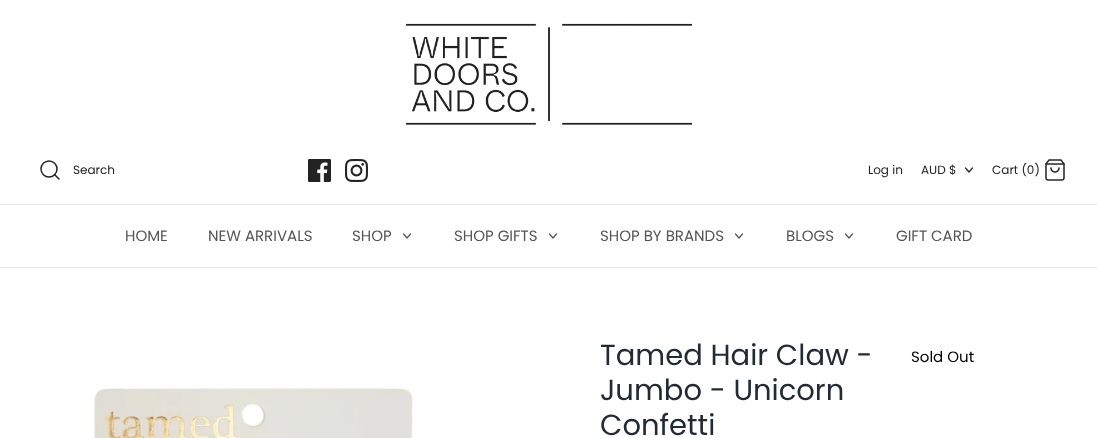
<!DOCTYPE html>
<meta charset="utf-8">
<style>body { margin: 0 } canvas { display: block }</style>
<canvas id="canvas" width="1097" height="438"></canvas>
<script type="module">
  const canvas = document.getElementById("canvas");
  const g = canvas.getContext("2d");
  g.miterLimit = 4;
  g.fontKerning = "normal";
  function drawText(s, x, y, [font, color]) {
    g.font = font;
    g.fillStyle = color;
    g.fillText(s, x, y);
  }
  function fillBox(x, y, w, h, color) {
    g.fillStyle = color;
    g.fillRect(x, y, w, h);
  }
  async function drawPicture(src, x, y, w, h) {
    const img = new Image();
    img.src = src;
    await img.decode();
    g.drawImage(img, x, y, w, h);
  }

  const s1 = ["12px Poppins", "#232323"];
  const s2 = ["15px Poppins", "#555555"];
  const s3 = ["29px Poppins", "#212B36"];
  const s4 = ["15px Poppins", "#000000"];

  fillBox(0, 0, 1097, 438, "#FFFFFF");
  await drawPicture("pic1.png", 406, 23, 286, 104);
  g.beginPath();
  g.arc(49, 169, 8, 0, Math.PI * 2);
  g.strokeStyle = "#232323";
  g.lineWidth = 1.5;
  g.stroke();
  g.beginPath();
  g.moveTo(59, 179);
  g.lineTo(54.5, 174.5);
  g.lineCap = "round";
  g.lineJoin = "round";
  g.stroke();
  drawText("Search", 73, 174, s1);
  await drawPicture("pic2.png", 308, 159, 23, 23);
  await drawPicture("pic3.png", 345, 159, 23, 23);
  drawText("Log in", 868, 174, s1);
  drawText("AUD $", 921, 174, s1);
  g.beginPath();
  g.moveTo(965.5, 168);
  g.lineTo(969, 172);
  g.lineTo(972.5, 168);
  g.lineWidth = 1.2;
  g.stroke();
  drawText("Cart (0)", 992, 174, s1);
  await drawPicture("pic4.png", 1045, 159, 20, 22);
  fillBox(0, 267, 1097, 1, "#E2E2E2");
  fillBox(0, 204, 1097, 1, "#E2E2E2");
  drawText("HOME", 125, 241, s2);
  drawText("NEW ARRIVALS", 208, 241, s2);
  drawText("SHOP", 352, 241, s2);
  g.beginPath();
  g.moveTo(403.5, 234);
  g.lineTo(407, 238);
  g.lineTo(410.5, 234);
  g.strokeStyle = "#555555";
  g.stroke();
  drawText("SHOP GIFTS", 454, 241, s2);
  g.beginPath();
  g.moveTo(549.5, 234);
  g.lineTo(553, 238);
  g.lineTo(556.5, 234);
  g.stroke();
  drawText("SHOP BY BRANDS", 600, 241, s2);
  g.beginPath();
  g.moveTo(735.5, 234);
  g.lineTo(739, 238);
  g.lineTo(742.5, 234);
  g.stroke();
  drawText("BLOGS", 786, 241, s2);
  g.beginPath();
  g.moveTo(845.5, 234);
  g.lineTo(849, 238);
  g.lineTo(852.5, 234);
  g.stroke();
  drawText("GIFT CARD", 896, 241, s2);
  await drawPicture("pic5.png", 93, 387, 320, 51);
  drawText("Tamed Hair Claw -", 600, 365, s3);
  drawText("Jumbo - Unicorn", 600, 400, s3);
  drawText("Confetti", 600, 435, s3);
  drawText("Sold Out", 911, 362, s4);
</script>
